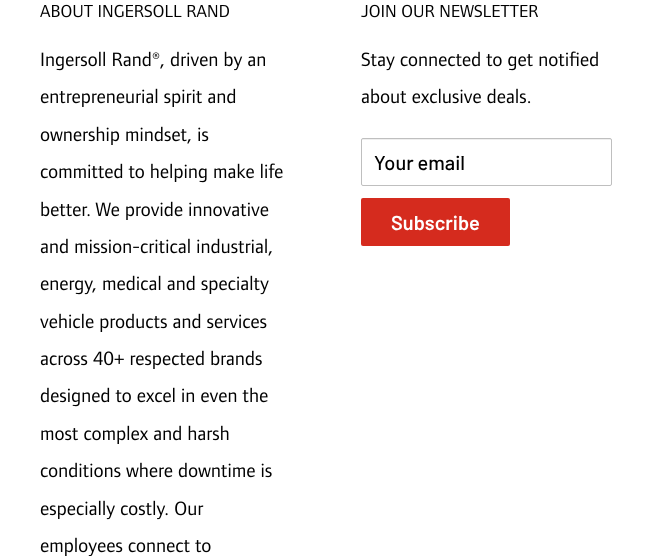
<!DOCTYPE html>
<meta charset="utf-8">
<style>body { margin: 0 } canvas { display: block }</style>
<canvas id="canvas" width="652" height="556"></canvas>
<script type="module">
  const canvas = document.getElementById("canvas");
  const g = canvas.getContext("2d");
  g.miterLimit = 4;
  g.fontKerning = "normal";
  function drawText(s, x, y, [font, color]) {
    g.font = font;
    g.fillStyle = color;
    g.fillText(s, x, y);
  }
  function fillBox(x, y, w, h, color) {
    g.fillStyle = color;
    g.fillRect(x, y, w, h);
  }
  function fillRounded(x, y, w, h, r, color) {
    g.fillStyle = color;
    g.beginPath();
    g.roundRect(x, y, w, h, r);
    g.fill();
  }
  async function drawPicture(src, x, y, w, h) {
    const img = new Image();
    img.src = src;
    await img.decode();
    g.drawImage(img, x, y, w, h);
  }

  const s1 = ["500 20px Barlow", "#000000"];
  const s2 = ["600 20px Barlow", "#FFFFFF"];

  fillBox(0, 0, 652, 556, "#FFFFFF");
  await drawPicture("pic1.png", 40, 4, 189, 14);
  await drawPicture("pic2.png", 41, 51, 110, 20);
  await drawPicture("pic3.png", 152, 52, 8, 7);
  await drawPicture("pic4.png", 160, 51, 105, 20);
  await drawPicture("pic5.png", 40, 88, 196, 19);
  await drawPicture("pic6.png", 40, 126, 169, 19);
  await drawPicture("pic7.png", 40, 163, 243, 20);
  await drawPicture("pic8.png", 41, 201, 228, 19);
  await drawPicture("pic9.png", 40, 238, 232, 18);
  await drawPicture("pic10.png", 40, 275, 229, 20);
  await drawPicture("pic11.png", 40, 313, 227, 19);
  await drawPicture("pic12.png", 40, 350, 222, 19);
  await drawPicture("pic13.png", 40, 387, 228, 20);
  await drawPicture("pic14.png", 41, 425, 188, 19);
  await drawPicture("pic15.png", 40, 462, 232, 16);
  await drawPicture("pic16.png", 40, 500, 164, 20);
  await drawPicture("pic17.png", 40, 537, 171, 19);
  await drawPicture("pic18.png", 361, 4, 177, 14);
  await drawPicture("pic19.png", 361, 51, 237, 20);
  await drawPicture("pic20.png", 361, 88, 170, 16);
  g.fillStyle = "#EFEFEF";
  g.beginPath();
  g.moveTo(363, 140);
  g.lineTo(610, 140);
  g.bezierCurveTo(611, 140, 611, 140, 611, 141);
  g.lineTo(611, 139);
  g.lineTo(363, 139);
  g.bezierCurveTo(362, 139, 362, 140, 362, 141);
  g.bezierCurveTo(362, 140, 362, 140, 363, 140);
  g.closePath();
  g.fill();
  g.beginPath();
  g.roundRect(361.5, 138.5, 250, 47, 1.5);
  g.strokeStyle = "#BFBFBF";
  g.stroke();
  drawText("Your email", 374, 170, s1);
  fillRounded(361, 198, 149, 48, 2, "#D52B1E");
  drawText("Subscribe", 391, 230, s2);
</script>
